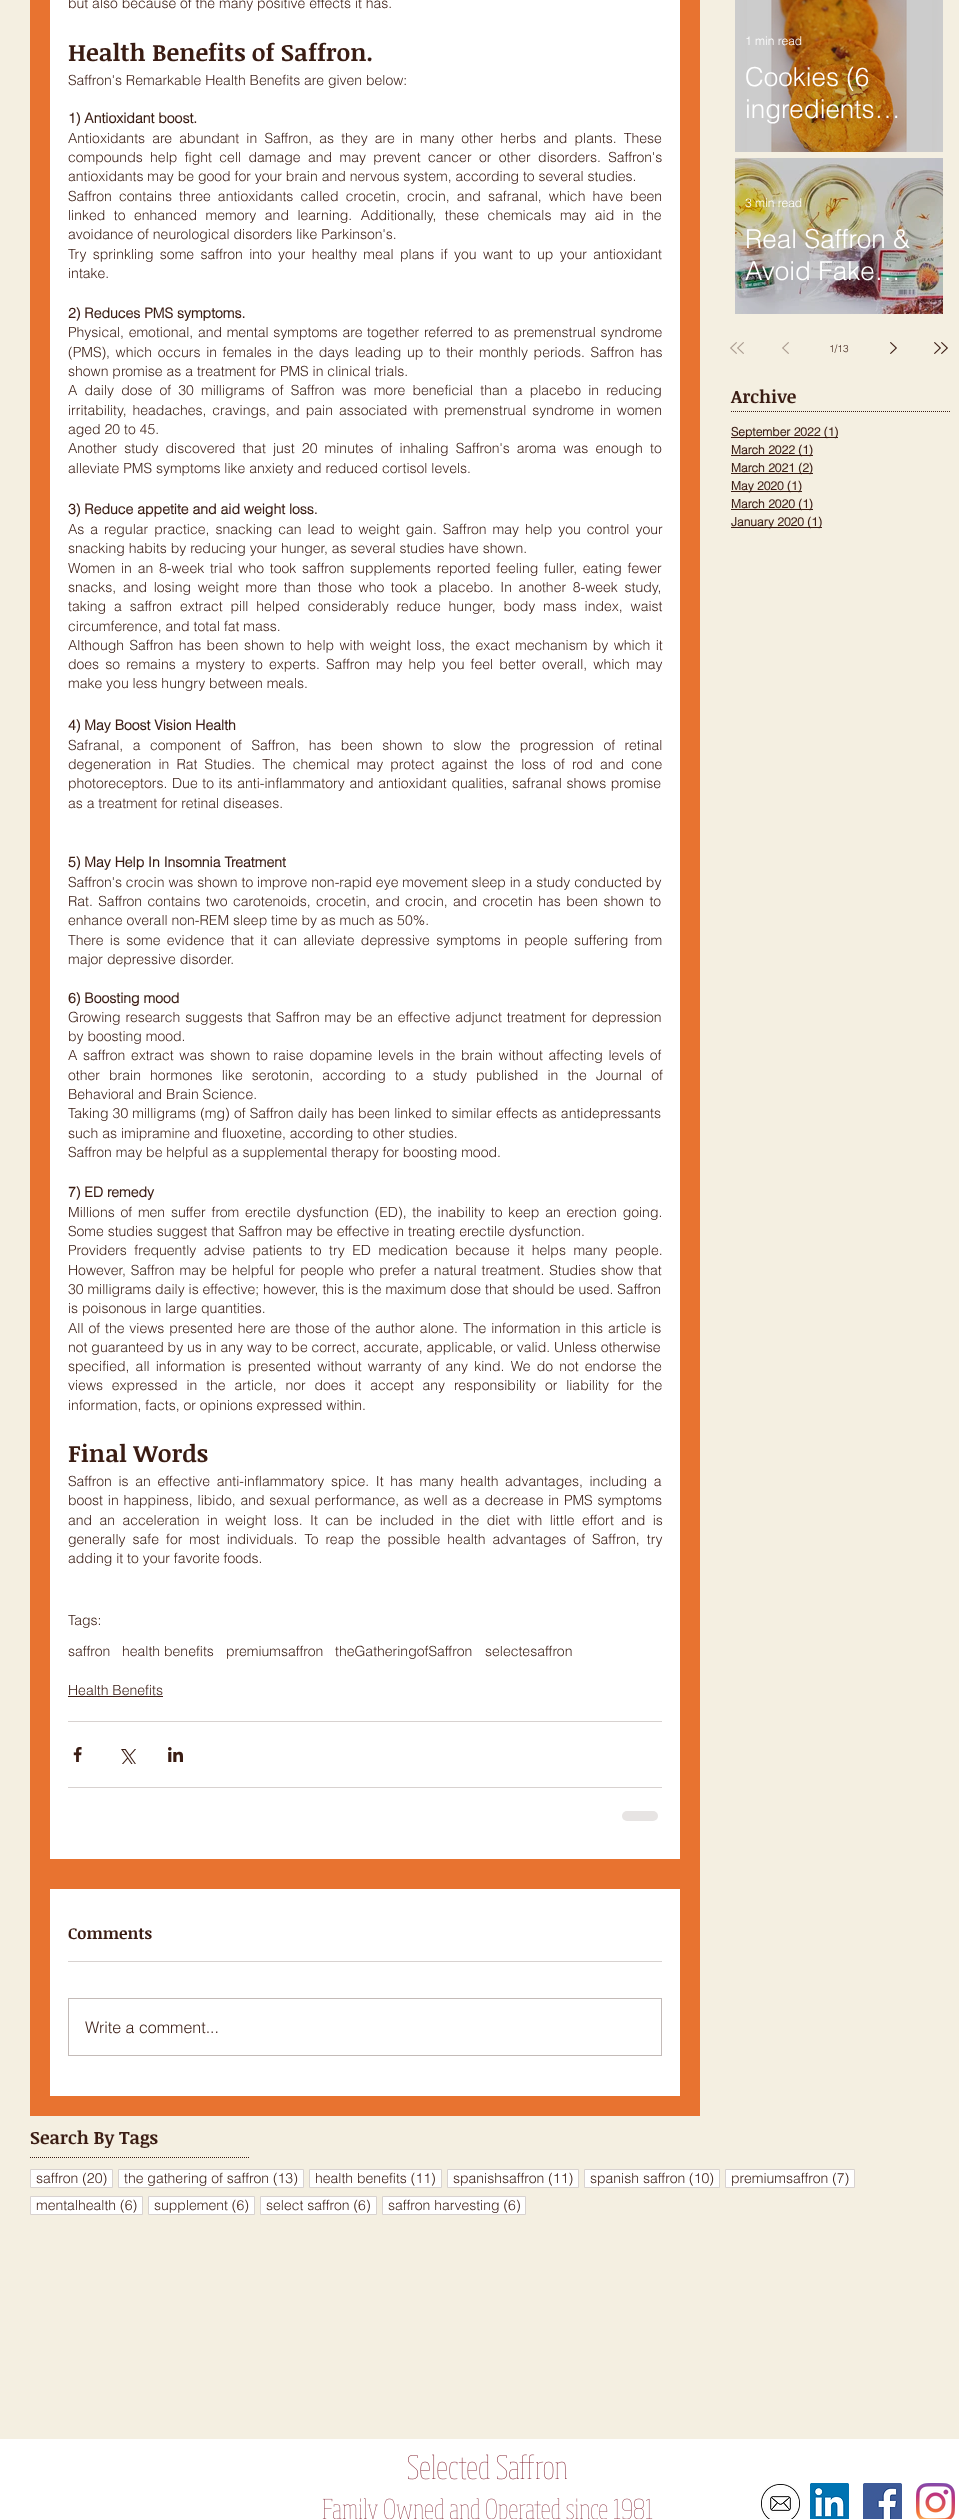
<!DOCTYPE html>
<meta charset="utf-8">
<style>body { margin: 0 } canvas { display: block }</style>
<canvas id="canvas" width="959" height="2519"></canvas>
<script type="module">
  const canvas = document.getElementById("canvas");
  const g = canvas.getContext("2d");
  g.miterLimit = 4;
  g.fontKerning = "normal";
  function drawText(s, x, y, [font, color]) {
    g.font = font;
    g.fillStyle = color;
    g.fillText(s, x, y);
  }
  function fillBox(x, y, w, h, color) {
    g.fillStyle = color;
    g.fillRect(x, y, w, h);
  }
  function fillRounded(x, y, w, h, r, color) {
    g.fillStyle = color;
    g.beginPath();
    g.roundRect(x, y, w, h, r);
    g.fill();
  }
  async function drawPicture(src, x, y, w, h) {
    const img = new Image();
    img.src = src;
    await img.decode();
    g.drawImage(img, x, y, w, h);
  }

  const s1 = ["300 14px helvetica", "#3A1C13"];
  const s2 = ["bold 24px Noticia Text", "#3A1C13"];
  const s3 = ["bold 14px helvetica", "#3A1C13"];
  const s4 = ["bold 16px Noticia Text", "#3A1C13"];
  const s5 = ["300 16px helvetica", "#3A1C13"];
  const s6 = ["300 12px helvetica", "#FFFFFF"];
  const s7 = ["300 26px helvetica", "#FFFFFF"];
  const s8 = ["300 10px helvetica", "#3A1C13"];
  const s9 = ["bold 18px Noticia Text", "#3A1C13"];
  const s10 = ["bold 12px helvetica", "#3A1C13"];

  fillBox(0, 0, 959, 2519, "#FFFFFF");
  fillBox(0, 0, 959, 2439, "#F4EFE1");
  fillBox(30, 0, 670, 2116, "#E87330");
  fillBox(50, 0, 630, 1859, "#FFFFFF");
  drawText("but also because of the many positive effects it has.", 68, 8, s1);
  drawText("Health Benefits of Saffron.", 68, 61, s2);
  drawText("Saffron's Remarkable Health Benefits are given below:", 68, 85, s1);
  drawText("1) Antioxidant boost.", 68, 123, s3);
  g.wordSpacing = "3.25px";
  drawText("Antioxidants are abundant in Saffron, as they are in many other herbs and plants. These", 68, 143, s1);
  g.wordSpacing = "3.5px";
  drawText("compounds help fight cell damage and may prevent cancer or other disorders. Saffron's", 68, 162, s1);
  g.wordSpacing = "0px";
  drawText("antioxidants may be good for your brain and nervous system, according to several studies.", 68, 181, s1);
  g.wordSpacing = "3.25px";
  drawText("Saffron contains three antioxidants called crocetin, crocin, and safranal, which have been", 68, 201, s1);
  g.wordSpacing = "4.6px";
  drawText("linked to enhanced memory and learning. Additionally, these chemicals may aid in the", 68, 220, s1);
  g.wordSpacing = "0px";
  drawText("avoidance of neurological disorders like Parkinson's.", 68, 239, s1);
  g.wordSpacing = "2.5px";
  drawText("Try sprinkling some saffron into your healthy meal plans if you want to up your antioxidant", 68, 259, s1);
  g.wordSpacing = "0px";
  drawText("intake.", 68, 278, s1);
  drawText("2) Reduces PMS symptoms.", 68, 318, s3);
  g.wordSpacing = "0.75px";
  drawText("Physical, emotional, and mental symptoms are together referred to as premenstrual syndrome", 68, 337, s1);
  g.wordSpacing = "1.7px";
  drawText("(PMS), which occurs in females in the days leading up to their monthly periods. Saffron has", 68, 357, s1);
  g.wordSpacing = "0px";
  drawText("shown promise as a treatment for PMS in clinical trials.", 68, 376, s1);
  g.wordSpacing = "3.25px";
  drawText("A daily dose of 30 milligrams of Saffron was more beneficial than a placebo in reducing", 68, 395, s1);
  g.wordSpacing = "2px";
  drawText("irritability, headaches, cravings, and pain associated with premenstrual syndrome in women", 68, 415, s1);
  g.wordSpacing = "0px";
  drawText("aged 20 to 45.", 68, 434, s1);
  g.wordSpacing = "3.25px";
  drawText("Another study discovered that just 20 minutes of inhaling Saffron's aroma was enough to", 68, 453, s1);
  g.wordSpacing = "0px";
  drawText("alleviate PMS symptoms like anxiety and reduced cortisol levels.", 68, 473, s1);
  drawText("3) Reduce appetite and aid weight loss.", 68, 514, s3);
  g.wordSpacing = "2.1px";
  drawText("As a regular practice, snacking can lead to weight gain. Saffron may help you control your", 68, 534, s1);
  g.wordSpacing = "0px";
  drawText("snacking habits by reducing your hunger, as several studies have shown.", 68, 553, s1);
  g.wordSpacing = "1.9px";
  drawText("Women in an 8-week trial who took saffron supplements reported feeling fuller, eating fewer", 68, 573, s1);
  g.wordSpacing = "2.75px";
  drawText("snacks, and losing weight more than those who took a placebo. In another 8-week study,", 68, 592, s1);
  g.wordSpacing = "4px";
  drawText("taking a saffron extract pill helped considerably reduce hunger, body mass index, waist", 68, 611, s1);
  g.wordSpacing = "0px";
  drawText("circumference, and total fat mass.", 68, 631, s1);
  g.wordSpacing = "1.5px";
  drawText("Although Saffron has been shown to help with weight loss, the exact mechanism by which it", 68, 650, s1);
  g.wordSpacing = "2.25px";
  drawText("does so remains a mystery to experts. Saffron may help you feel better overall, which may", 68, 669, s1);
  g.wordSpacing = "0px";
  drawText("make you less hungry between meals.", 68, 688, s1);
  drawText("4) May Boost Vision Health", 68, 730, s3);
  g.wordSpacing = "5.6px";
  drawText("Safranal, a component of Saffron, has been shown to slow the progression of retinal", 68, 750, s1);
  g.wordSpacing = "3.25px";
  drawText("degeneration in Rat Studies. The chemical may protect against the loss of rod and cone", 68, 769, s1);
  g.wordSpacing = "0.75px";
  drawText("photoreceptors. Due to its anti-inflammatory and antioxidant qualities, safranal shows promise", 68, 788, s1);
  g.wordSpacing = "0px";
  drawText("as a treatment for retinal diseases.", 68, 808, s1);
  drawText("5) May Help In Insomnia Treatment", 68, 867, s3);
  drawText("Saffron's crocin was shown to improve non-rapid eye movement sleep in a study conducted by", 68, 887, s1);
  g.wordSpacing = "1.5px";
  drawText("Rat. Saffron contains two carotenoids, crocetin, and crocin, and crocetin has been shown to", 68, 906, s1);
  g.wordSpacing = "0px";
  drawText("enhance overall non-REM sleep time by as much as 50%.", 68, 925, s1);
  g.wordSpacing = "2.4px";
  drawText("There is some evidence that it can alleviate depressive symptoms in people suffering from", 68, 945, s1);
  g.wordSpacing = "0px";
  drawText("major depressive disorder.", 68, 964, s1);
  drawText("6) Boosting mood", 68, 1003, s3);
  g.wordSpacing = "1px";
  drawText("Growing research suggests that Saffron may be an effective adjunct treatment for depression", 68, 1022, s1);
  g.wordSpacing = "0px";
  drawText("by boosting mood.", 68, 1041, s1);
  g.wordSpacing = "1.75px";
  drawText("A saffron extract was shown to raise dopamine levels in the brain without affecting levels of", 68, 1060, s1);
  g.wordSpacing = "5.25px";
  drawText("other brain hormones like serotonin, according to a study published in the Journal of", 68, 1080, s1);
  g.wordSpacing = "0px";
  drawText("Behavioral and Brain Science.", 68, 1099, s1);
  g.wordSpacing = "0.25px";
  drawText("Taking 30 milligrams (mg) of Saffron daily has been linked to similar effects as antidepressants", 68, 1118, s1);
  g.wordSpacing = "0px";
  drawText("such as imipramine and fluoxetine, according to other studies.", 68, 1138, s1);
  drawText("Saffron may be helpful as a supplemental therapy for boosting mood.", 68, 1157, s1);
  drawText("7) ED remedy", 68, 1197, s3);
  g.wordSpacing = "1.9px";
  drawText("Millions of men suffer from erectile dysfunction (ED), the inability to keep an erection going.", 68, 1217, s1);
  g.wordSpacing = "0px";
  drawText("Some studies suggest that Saffron may be effective in treating erectile dysfunction.", 68, 1236, s1);
  g.wordSpacing = "3.6px";
  drawText("Providers frequently advise patients to try ED medication because it helps many people.", 68, 1255, s1);
  g.wordSpacing = "1px";
  drawText("However, Saffron may be helpful for people who prefer a natural treatment. Studies show that", 68, 1275, s1);
  g.wordSpacing = "0px";
  drawText("30 milligrams daily is effective; however, this is the maximum dose that should be used. Saffron", 68, 1294, s1);
  drawText("is poisonous in large quantities.", 68, 1313, s1);
  g.wordSpacing = "1px";
  drawText("All of the views presented here are those of the author alone. The information in this article is", 68, 1333, s1);
  g.wordSpacing = "0px";
  drawText("not guaranteed by us in any way to be correct, accurate, applicable, or valid. Unless otherwise", 68, 1352, s1);
  g.wordSpacing = "2.25px";
  drawText("specified, all information is presented without warranty of any kind. We do not endorse the", 68, 1371, s1);
  g.wordSpacing = "4.9px";
  drawText("views expressed in the article, nor does it accept any responsibility or liability for the", 68, 1390, s1);
  g.wordSpacing = "0px";
  drawText("information, facts, or opinions expressed within.", 68, 1410, s1);
  drawText("Final Words", 68, 1462, s2);
  g.wordSpacing = "2.75px";
  drawText("Saffron is an effective anti-inflammatory spice. It has many health advantages, including a", 68, 1486, s1);
  g.wordSpacing = "0.9px";
  drawText("boost in happiness, libido, and sexual performance, as well as a decrease in PMS symptoms", 68, 1505, s1);
  g.wordSpacing = "3.5px";
  drawText("and an acceleration in weight loss. It can be included in the diet with little effort and is", 68, 1525, s1);
  g.wordSpacing = "3.1px";
  drawText("generally safe for most individuals. To reap the possible health advantages of Saffron, try", 68, 1544, s1);
  g.wordSpacing = "0px";
  drawText("adding it to your favorite foods.", 68, 1563, s1);
  drawText("Tags:", 68, 1625, s1);
  drawText("saffron", 68, 1656, s1);
  drawText("health benefits", 122, 1656, s1);
  drawText("premiumsaffron", 226, 1656, s1);
  drawText("theGatheringofSaffron", 335, 1656, s1);
  drawText("selectesaffron", 485, 1656, s1);
  drawText("Health Benefits", 68, 1695, s1);
  fillBox(68, 1696, 95, 1, "#3A1C13");
  fillBox(68, 1721, 594, 1, "#D8D2D0");
  await drawPicture("pic1.png", 73, 1747, 9, 15);
  await drawPicture("pic2.png", 121, 1749, 15, 15);
  await drawPicture("pic3.png", 168, 1747, 15, 15);
  fillBox(68, 1787, 594, 1, "#D8D2D0");
  fillRounded(622, 1811, 36, 10, 5, "#E7E4E3");
  fillBox(50, 1889, 630, 207, "#FFFFFF");
  drawText("Comments", 68, 1939, s4);
  fillBox(68, 1961, 594, 1, "#D8D2D0");
  g.strokeStyle = "#C4BBB8";
  g.strokeRect(68.5, 1998.5, 593, 57);
  drawText("Write a comment...", 85, 2033, s5);
  await drawPicture("pic4.png", 735, 0, 208, 152);
  await drawPicture("pic5.png", 747, 0, 185, 152);
  drawText("1 min read", 745, 45, s6);
  drawText("Cookies (6", 745, 86, s7);
  drawText("ingredients…", 745, 118, s7);
  await drawPicture("pic6.png", 735, 158, 208, 156);
  drawText("3 min read", 745, 207, s6);
  drawText("Real Saffron &", 745, 248, s7);
  drawText("Avoid Fake…", 745, 280, s7);
  await drawPicture("pic7.png", 730, 342, 7, 12);
  await drawPicture("pic7.png", 737, 342, 7, 12);
  await drawPicture("pic7.png", 782, 342, 7, 12);
  drawText("1/13", 829, 352, s8);
  await drawPicture("pic8.png", 890, 342, 7, 12);
  await drawPicture("pic8.png", 934, 342, 7, 12);
  await drawPicture("pic8.png", 941, 342, 7, 12);
  drawText("Archive", 731, 403, s9);
  g.beginPath();
  g.moveTo(731, 411.5);
  g.lineTo(951, 411.5);
  g.strokeStyle = "#3A1C13";
  g.setLineDash([1, 1]);
  g.stroke();
  fillBox(731, 437, 107, 1, "#3A1C13");
  drawText("September 2022 (1)", 731, 436, s10);
  fillBox(731, 455, 82, 1, "#3A1C13");
  drawText("March 2022 (1)", 731, 454, s10);
  fillBox(731, 473, 82, 1, "#3A1C13");
  drawText("March 2021 (2)", 731, 472, s10);
  fillBox(731, 491, 71, 1, "#3A1C13");
  drawText("May 2020 (1)", 731, 490, s10);
  fillBox(731, 509, 82, 1, "#3A1C13");
  drawText("March 2020 (1)", 731, 508, s10);
  fillBox(731, 527, 91, 1, "#3A1C13");
  drawText("January 2020 (1)", 731, 526, s10);
  drawText("Search By Tags", 30, 2144, s9);
  g.beginPath();
  g.moveTo(30, 2157.5);
  g.lineTo(250, 2157.5);
  g.stroke();
  g.fillStyle = "#FFFFFF";
  g.beginPath();
  g.rect(30.5, 2169.5, 82, 18);
  g.fill();
  g.strokeStyle = "#D8D2D0";
  g.setLineDash([]);
  g.stroke();
  drawText("saffron (20)", 36, 2183, s1);
  g.fillStyle = "#FFFFFF";
  g.beginPath();
  g.rect(118.5, 2169.5, 185, 18);
  g.fill();
  g.stroke();
  drawText("the gathering of saffron (13)", 124, 2183, s1);
  g.fillStyle = "#FFFFFF";
  g.beginPath();
  g.rect(309.5, 2169.5, 132, 18);
  g.fill();
  g.stroke();
  drawText("health benefits (11)", 315, 2183, s1);
  g.fillStyle = "#FFFFFF";
  g.beginPath();
  g.rect(447.5, 2169.5, 131, 18);
  g.fill();
  g.stroke();
  drawText("spanishsaffron (11)", 453, 2183, s1);
  g.fillStyle = "#FFFFFF";
  g.beginPath();
  g.rect(584.5, 2169.5, 135, 18);
  g.fill();
  g.stroke();
  drawText("spanish saffron (10)", 590, 2183, s1);
  g.fillStyle = "#FFFFFF";
  g.beginPath();
  g.rect(725.5, 2169.5, 129, 18);
  g.fill();
  g.stroke();
  drawText("premiumsaffron (7)", 731, 2183, s1);
  g.fillStyle = "#FFFFFF";
  g.beginPath();
  g.rect(30.5, 2196.5, 112, 18);
  g.fill();
  g.stroke();
  drawText("mentalhealth (6)", 36, 2210, s1);
  g.fillStyle = "#FFFFFF";
  g.beginPath();
  g.rect(148.5, 2196.5, 106, 18);
  g.fill();
  g.stroke();
  drawText("supplement (6)", 154, 2210, s1);
  g.fillStyle = "#FFFFFF";
  g.beginPath();
  g.rect(260.5, 2196.5, 116, 18);
  g.fill();
  g.stroke();
  drawText("select saffron (6)", 266, 2210, s1);
  g.fillStyle = "#FFFFFF";
  g.beginPath();
  g.rect(382.5, 2196.5, 143, 18);
  g.fill();
  g.stroke();
  drawText("saffron harvesting (6)", 388, 2210, s1);
  await drawPicture("pic9.png", 408, 2454, 159, 26);
  await drawPicture("pic10.png", 322, 2498, 331, 21);
  await drawPicture("pic11.png", 761, 2484, 39, 35);
  await drawPicture("pic12.png", 810, 2483, 39, 36);
  await drawPicture("pic13.png", 863, 2483, 39, 36);
  await drawPicture("pic14.png", 916, 2483, 39, 36);
</script>
